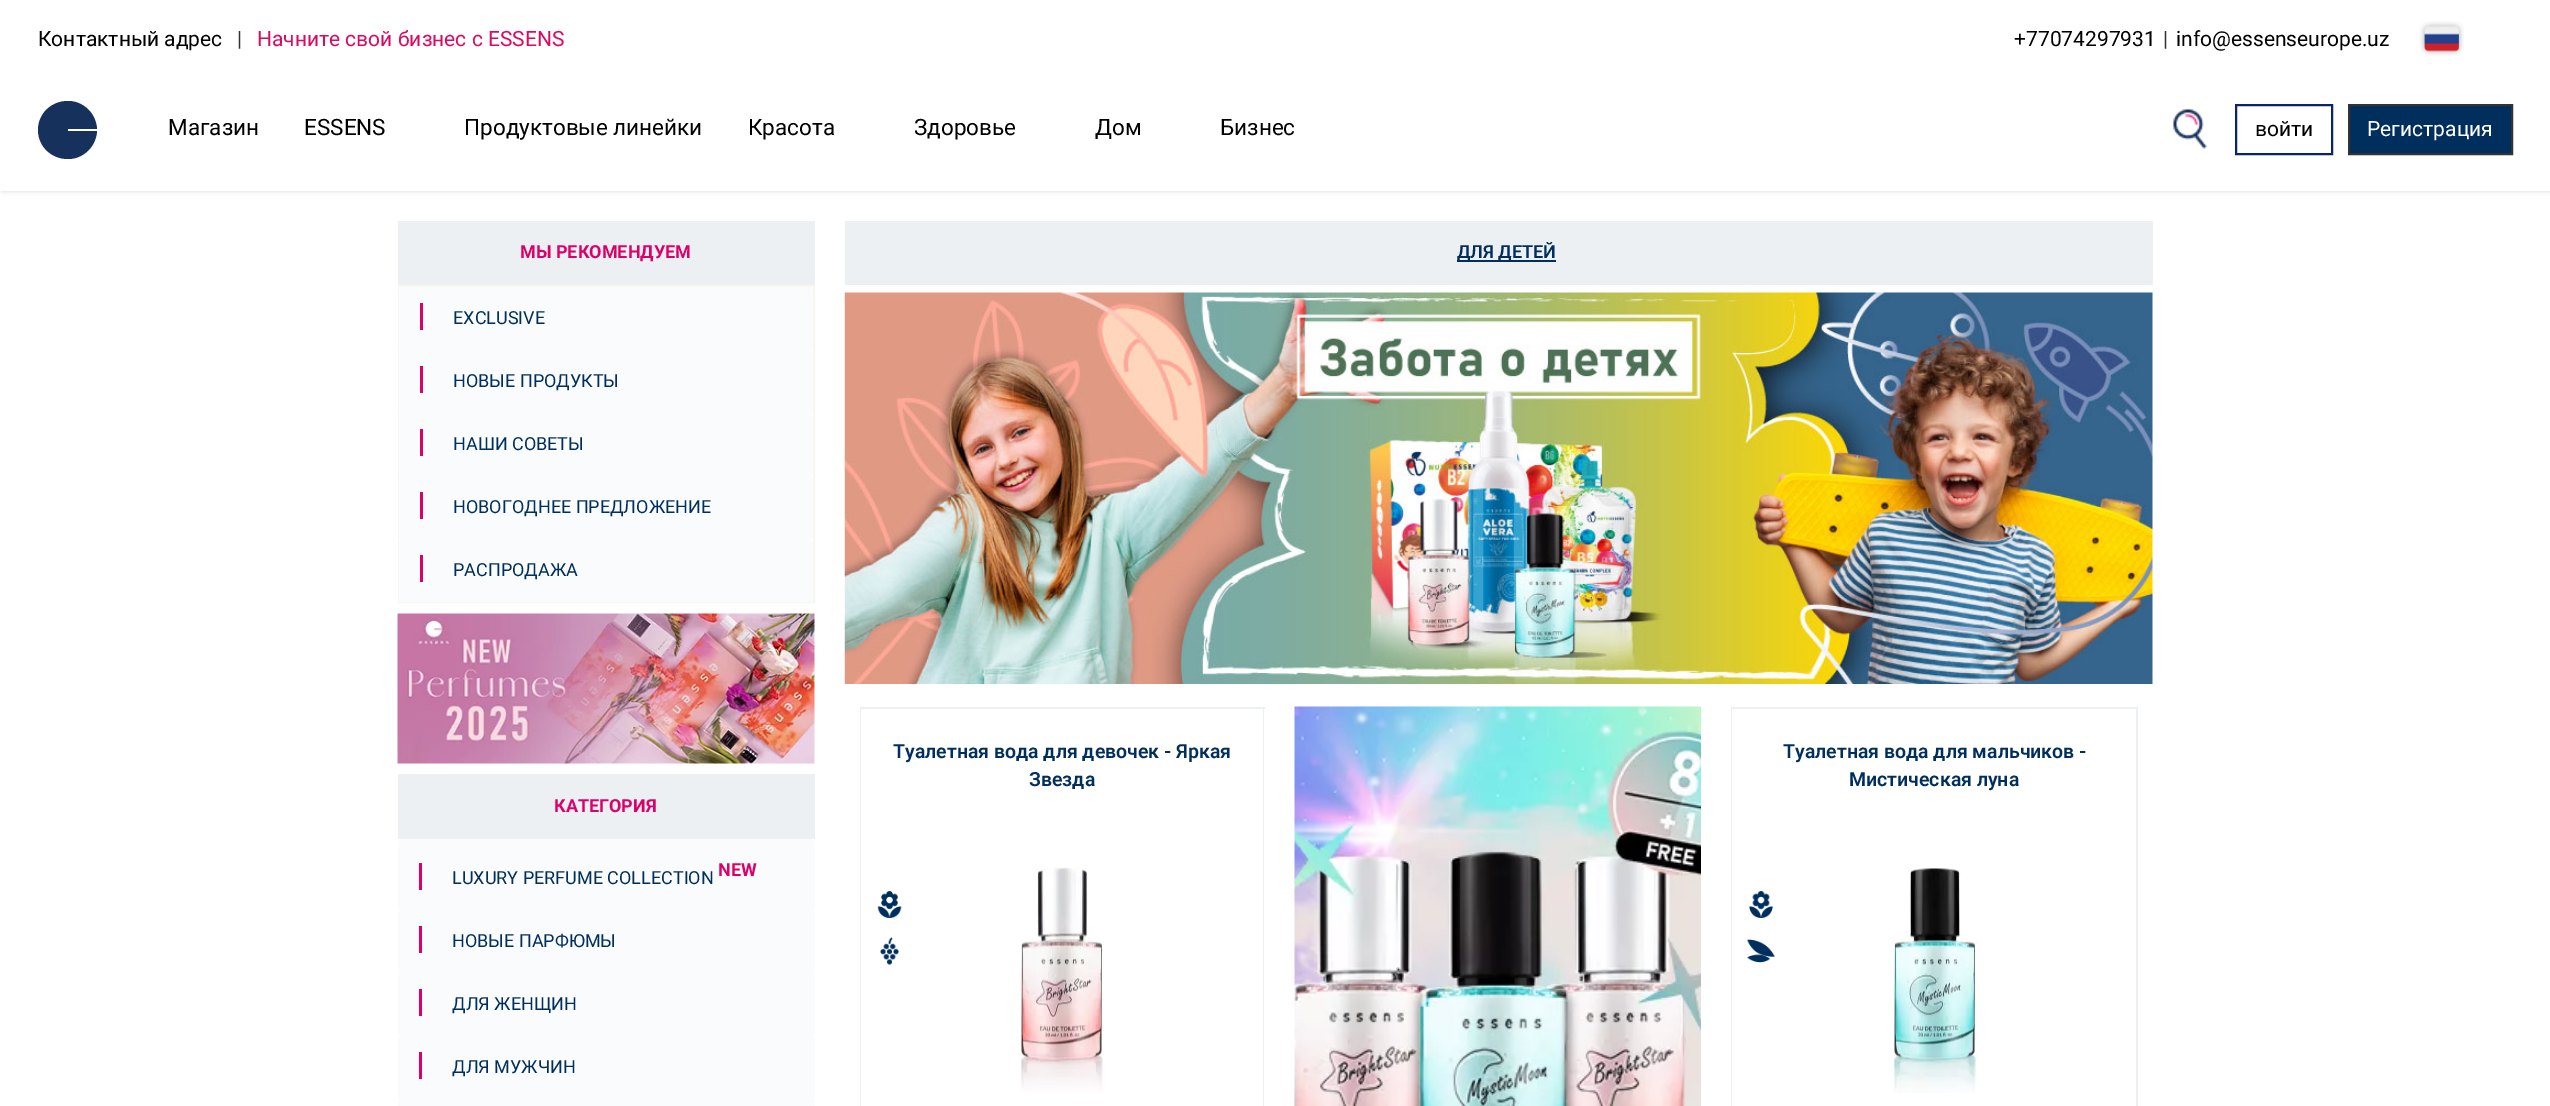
%!PS
<< /PageSize [2550 1106] /PageUsesTransparency true >> setpagedevice
/rgb { dup -16 bitshift 255 div exch dup -8 bitshift 255 and 255 div exch 255 and 255 div setrgbcolor } def
/font { [ exch dup neg 0 0 3 -1 roll 0 0 ] selectfont } def
/text { moveto show } def
/alpha { dup .setfillconstantalpha .setstrokeconstantalpha } def
/roundrect { 5 dict begin { /r /h /w /y /x } { exch def } forall
  x r add y moveto x w add y 2 copy h add r arct x w add y h add x 1 index r arct
  x y h add x y r arct x y 2 copy exch w add exch r arct closepath end } def
/shadow { 12 dict begin { /a /b /q /h /w /y /x } { exch def } forall gsave /was 0 def
  9 -2 -9 { dup b mul 4 div /e exch def 1 sub .425 mul 2.718 exch exp 1 add a .99 .min exch div /now exch def
    1 1 now sub 1 was sub div sub alpha /was now def
    w h .min e 2 mul add 0 gt { x e sub y e sub w e 2 mul add h e 2 mul add
      q e add b .6 mul add w h .min 2 div e add .min 0 .max roundrect fill } if } for grestore end } def
/picture { 5 dict begin { /h /w /y /x /name } { exch def } forall
  gsave x y translate w h scale
  w h 8 [w 0 0 h 0 0] name (r) file false 3 colorimage grestore end } def
0 .pushpdf14devicefilter
0 1106 translate 1 -1 scale
4 setmiterlimit
/s1 { /Roboto-Regular 21 font 16#000000 rgb } def
/s2 { /Roboto-Regular 21 font 16#333333 rgb } def
/s3 { /Roboto-Regular 21 font 16#DB0962 rgb } def
/s4 { /Roboto-Regular 22.5 font 16#000000 rgb } def
/s5 { /Roboto-Regular 21 font 16#FFFFFF rgb } def
/s6 { /Roboto-Bold 18 font 16#DC0069 rgb } def
/s7 { /Roboto-Regular 18 font 16#002E5D rgb } def
/s8 { /Roboto-SemiBold 18 font 16#002E5D rgb } def
/s9 { /Roboto-SemiBold 19.5 font 16#002E5D rgb } def
16#FFFFFF rgb
0 0 2550 1106 rectfill
16#E1E1E1 rgb
2 2 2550 190 0 2 1 shadow
16#FFFFFF rgb
0 0 2550 191 rectfill
s1
(Контактный адрес) 38 46 text
s2
(|) 237 46 text
s3
(Начните свой бизнес с ESSENS) 257 46 text
s1
(+77074297931) 2014 46 text
s2
(|) 2163 46 text
s1
(info@essenseurope.uz) 2176 46 text
(pic1.raw) 2419 21 45 35 picture
16#16315B rgb
68 129 moveto 97 129 lineto 96 113 83 101 68 101 curveto 51 101 38 114 38 130 curveto 38 146 51 159 68 159 curveto 83 159 96 147 97 131 curveto 68 131 lineto closepath fill
s4
(Магазин) 168 135 text
(ESSENS) 304 135 text
(Продуктовые линейки) 464 135 text
(Красота) 748 135 text
(Здоровье) 914 135 text
(Дом) 1095 135 text
(Бизнес) 1220 135 text
(pic2.raw) 2173 109 34 40 picture
16#0A246A rgb
2 setlinewidth
2236 105 96 49 rectstroke
s1
(войти) 2255 136 text
16#002E5D rgb
2349 105 moveto 2512 105 lineto 2512 154 lineto 2349 154 lineto closepath gsave fill grestore
16#333333 rgb
stroke
s5
(Регистрация) 2367 136 text
16#ECF0F3 rgb
398 221 417 64 rectfill
s6
(МЫ РЕКОМЕНДУЕМ) 520 258 text
16#F7F7F0 rgb
399 286 415 316 rectstroke
16#FFFFFF rgb
399 287 1 257 rectfill
16#F9FBFC rgb
404 287 moveto 808 287 lineto 811 287 813 289 813 292 curveto 813 350 lineto 399 350 lineto 399 292 lineto 399 289 401 287 404 287 curveto closepath fill
16#DC0069 rgb
420 303 3 27 rectfill
s7
(EXCLUSIVE) 453 324 text
16#F9FBFC rgb
404 350 moveto 808 350 lineto 811 350 813 352 813 355 curveto 813 413 lineto 399 413 lineto 399 355 lineto 399 352 401 350 404 350 curveto closepath fill
16#DC0069 rgb
420 366 3 27 rectfill
s7
(НОВЫЕ ПРОДУКТЫ) 453 387 text
16#F9FBFC rgb
404 413 moveto 808 413 lineto 811 413 813 415 813 418 curveto 813 476 lineto 399 476 lineto 399 418 lineto 399 415 401 413 404 413 curveto closepath fill
16#DC0069 rgb
420 429 3 27 rectfill
s7
(НАШИ СОВЕТЫ) 453 450 text
16#F9FBFC rgb
404 476 moveto 808 476 lineto 811 476 813 478 813 481 curveto 813 539 lineto 399 539 lineto 399 481 lineto 399 478 401 476 404 476 curveto closepath fill
16#DC0069 rgb
420 492 3 27 rectfill
s7
(НОВОГОДНЕЕ ПРЕДЛОЖЕНИЕ) 453 513 text
16#F9FBFC rgb
404 539 moveto 808 539 lineto 811 539 813 541 813 544 curveto 813 602 lineto 399 602 lineto 399 544 lineto 399 541 401 539 404 539 curveto closepath fill
16#DC0069 rgb
420 555 3 27 rectfill
s7
(РАСПРОДАЖА) 453 576 text
(pic3.raw) 397 613 418 151 picture
16#ECF0F3 rgb
398 774 417 65 rectfill
s6
(КАТЕГОРИЯ) 554 812 text
16#F9FBFC rgb
403 839 moveto 810 839 lineto 813 839 815 841 815 844 curveto 815 909 lineto 398 909 lineto 398 844 lineto 398 841 400 839 403 839 curveto closepath fill
16#DC0069 rgb
419 863 3 27 rectfill
(NEW) 718 876 text
s7
(LUXURY PERFUME COLLECTION) 452 884 text
16#F9FBFC rgb
403 909 moveto 810 909 lineto 813 909 815 911 815 914 curveto 815 972 lineto 398 972 lineto 398 914 lineto 398 911 400 909 403 909 curveto closepath fill
16#DC0069 rgb
419 926 3 27 rectfill
s7
(НОВЫЕ ПАРФЮМЫ) 452 947 text
16#F9FBFC rgb
403 972 moveto 810 972 lineto 813 972 815 974 815 977 curveto 815 1035 lineto 398 1035 lineto 398 977 lineto 398 974 400 972 403 972 curveto closepath fill
16#DC0069 rgb
419 989 3 27 rectfill
s7
(ДЛЯ ЖЕНЩИН) 452 1010 text
16#F9FBFC rgb
403 1035 moveto 810 1035 lineto 813 1035 815 1037 815 1040 curveto 815 1098 lineto 398 1098 lineto 398 1040 lineto 398 1037 400 1035 403 1035 curveto closepath fill
16#DC0069 rgb
419 1052 3 27 rectfill
s7
(ДЛЯ МУЖЧИН) 452 1073 text
16#F9FBFC rgb
403 1098 moveto 810 1098 lineto 813 1098 815 1100 815 1103 curveto 815 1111 lineto 398 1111 lineto 398 1103 lineto 398 1100 400 1098 403 1098 curveto closepath fill
16#ECF0F3 rgb
845 221 1308 64 rectfill
16#002E5D rgb
1457 260 99 2 rectfill
s8
(ДЛЯ ДЕТЕЙ) 1457 258 text
(pic4.raw) 844 292 1309 392 picture
16#ECF0F3 rgb
860 707 405 2 rectfill
1264 706 moveto 1264 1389 lineto 1263 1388 lineto 1263 708 lineto closepath fill
860 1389 moveto 860 706 lineto 861 708 lineto 861 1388 lineto closepath fill
s9
(Туалетная вода для девочек - Яркая) 893 758 text
(Звезда) 1029 786 text
(pic5.raw) 877 891 25 27 picture
(pic6.raw) 880 937 19 28 picture
(pic7.raw) 1020 867 84 225 picture
(pic8.raw) 1294 706 407 400 picture
16#ECF0F3 rgb
1731 707 407 2 rectfill
2138 706 moveto 2138 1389 lineto 2136 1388 lineto 2136 708 lineto closepath fill
1731 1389 moveto 1731 706 lineto 1732 708 lineto 1732 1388 lineto closepath fill
s9
(Туалетная вода для мальчиков -) 1783 758 text
(Мистическая луна) 1849 786 text
(pic9.raw) 1749 891 24 27 picture
(pic10.raw) 1747 939 28 24 picture
(pic11.raw) 1890 868 87 225 picture
.poppdf14devicefilter showpage
